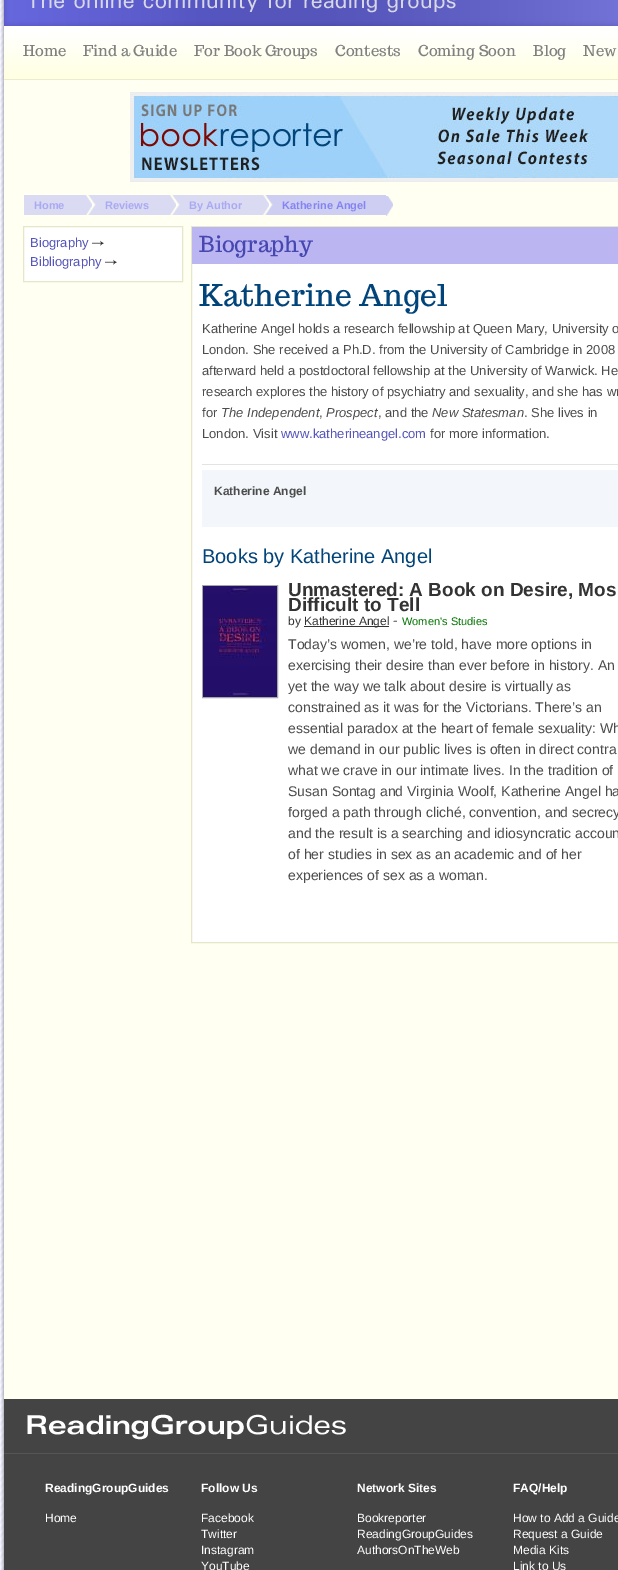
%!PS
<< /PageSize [618 1570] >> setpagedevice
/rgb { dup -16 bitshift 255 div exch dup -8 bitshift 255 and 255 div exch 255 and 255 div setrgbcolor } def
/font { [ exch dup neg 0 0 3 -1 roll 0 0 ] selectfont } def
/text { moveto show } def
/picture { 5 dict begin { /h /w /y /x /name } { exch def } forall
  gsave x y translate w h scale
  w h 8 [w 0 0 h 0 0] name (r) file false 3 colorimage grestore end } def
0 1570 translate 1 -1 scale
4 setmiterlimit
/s1 { /Trocchi-Regular 15 font 16#808080 rgb } def
/s2 { /LiberationSans-Bold 11 font 16#AAAAF2 rgb } def
/s3 { /LiberationSans-Bold 11 font 16#8585F2 rgb } def
/s4 { /LiberationSans-Regular 13 font 16#5555BB rgb } def
/s5 { /Trocchi-Regular 22 font 16#4747B2 rgb } def
/s6 { /Trocchi-Regular 30 font 16#00447A rgb } def
/s7 { /LiberationSans-Regular 13 font 16#4C4C4C rgb } def
/s8 { /LiberationSans-Italic 13 font 16#4C4C4C rgb } def
/s9 { /LiberationSans-Bold 12 font 16#4C4C4C rgb } def
/s10 { /LiberationSans-Regular 20 font 16#00447A rgb } def
/s11 { /LiberationSans-Bold 19 font 16#333333 rgb } def
/s12 { /LiberationSans-Regular 12 font 16#333333 rgb } def
/s13 { /LiberationSans-Regular 14 font 16#4C4C4C rgb } def
/s14 { /LiberationSans-Regular 11 font 16#027500 rgb } def
/s15 { /LiberationSans-Bold 12 font 16#FFFFFF rgb } def
/s16 { /LiberationSans-Regular 12 font 16#FFFFFF rgb } def
16#FFFFFF rgb
0 0 618 1570 rectfill
(pic1.raw) 0 0 4 1570 picture
(pic2.raw) 1 0 617 1570 picture
(pic3.raw) 4 0 614 26 picture
(pic4.raw) 32 0 424 13 picture
(pic5.raw) 4 26 614 54 picture
s1
(Home) 23 56 text
(Find a Guide) 83 56 text
(For Book Groups) 194 56 text
(Contests) 335 56 text
(Coming Soon) 418 56 text
(Blog) 533 56 text
(New) 583 56 text
(pic6.raw) 130 92 488 90 picture
(pic7.raw) 386 196 7 20 picture
16#DADAF2 rgb
24 195 61 20 rectfill
s2
(Home) 34 209 text
(pic8.raw) 85 195 84 20 picture
(Reviews) 105 209 text
(pic9.raw) 169 195 93 20 picture
(By Author) 189 209 text
(pic10.raw) 262 195 124 20 picture
s3
(Katherine Angel) 282 209 text
16#FFFFFF rgb
23.5 226.5 moveto 182.5 226.5 lineto 182.5 281.5 lineto 23.5 281.5 lineto closepath gsave fill grestore
16#E6E6C8 rgb
stroke
s4
(Biography) 30 247 text
(pic11.raw) 92 240 12 6 picture
(Bibliography) 30 266 text
(pic11.raw) 105 259 12 6 picture
16#FFFFFF rgb
192 264 426 678 rectfill
16#E6E6C8 rgb
191.5 226.5 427 716 rectstroke
16#BBB6F2 rgb
192 227 426 37 rectfill
s5
(Biography) 199 252 text
s6
(Katherine Angel) 199 306 text
16#E3E3E3 rgb
202 464 416 1 rectfill
s7
(Katherine Angel holds a research fellowship at Queen Mary, University o) 202 333 text
(London. She received a Ph.D. from the University of Cambridge in 2008) 202 354 text
(afterward held a postdoctoral fellowship at the University of Warwick. He) 202 375 text
(research explores the history of psychiatry and sexuality, and she has wr) 202 396 text
(for) 202 417 text
s8
(The Independent) 221 417 text
s7
(,) 319 417 text
s8
(Prospect) 326 417 text
s7
(, and the) 378 417 text
s8
(New Statesman) 432 417 text
s7
(. She lives in) 524 417 text
(London. Visit) 202 438 text
s4
(www.katherineangel.com) 281 438 text
s7
(for more information.) 430 438 text
16#F3F7FB rgb
202 470 416 57 rectfill
s9
(Katherine Angel) 214 495 text
s10
(Books by Katherine Angel) 202 563 text
16#A6A6A6 rgb
202.5 585.5 75 112 rectstroke
(pic12.raw) 203 586 74 111 picture
s11
(Unmastered: A Book on Desire, Mos) 288 596 text
(Difficult to Tell) 288 611 text
s12
(by) 288 625 text
304 626 85 1 rectfill
(Katherine Angel) 304 625 text
s13
(-) 393 625 text
s14
(Women's Studies) 402 625 text
s13
(Today’s women, we’re told, have more options in) 288 649 text
(exercising their desire than ever before in history. An) 288 670 text
(yet the way we talk about desire is virtually as) 288 691 text
(constrained as it was for the Victorians. There’s an) 288 712 text
(essential paradox at the heart of female sexuality: Wh) 288 733 text
(we demand in our public lives is often in direct contra) 288 754 text
(what we crave in our intimate lives. In the tradition of) 288 775 text
(Susan Sontag and Virginia Woolf, Katherine Angel ha) 288 796 text
(forged a path through cliché, convention, and secrecy) 288 817 text
(and the result is a searching and idiosyncratic accoun) 288 838 text
(of her studies in sex as an academic and of her) 288 859 text
(experiences of sex as a woman.) 288 880 text
16#444444 rgb
4 1399 614 171 rectfill
(pic13.raw) 27 1414 319 26 picture
16#555555 rgb
4 1453 614 1 rectfill
s15
(ReadingGroupGuides) 45 1492 text
s16
(Home) 45 1522 text
s15
(Follow Us) 201 1492 text
s16
(Facebook) 201 1522 text
(Twitter) 201 1538 text
(Instagram) 201 1554 text
(YouTube) 201 1570 text
s15
(Network Sites) 357 1492 text
s16
(Bookreporter) 357 1522 text
(ReadingGroupGuides) 357 1538 text
(AuthorsOnTheWeb) 357 1554 text
s15
(FAQ/Help) 513 1492 text
s16
(How to Add a Guide) 513 1522 text
(Request a Guide) 513 1538 text
(Media Kits) 513 1554 text
(Link to Us) 513 1570 text
showpage
